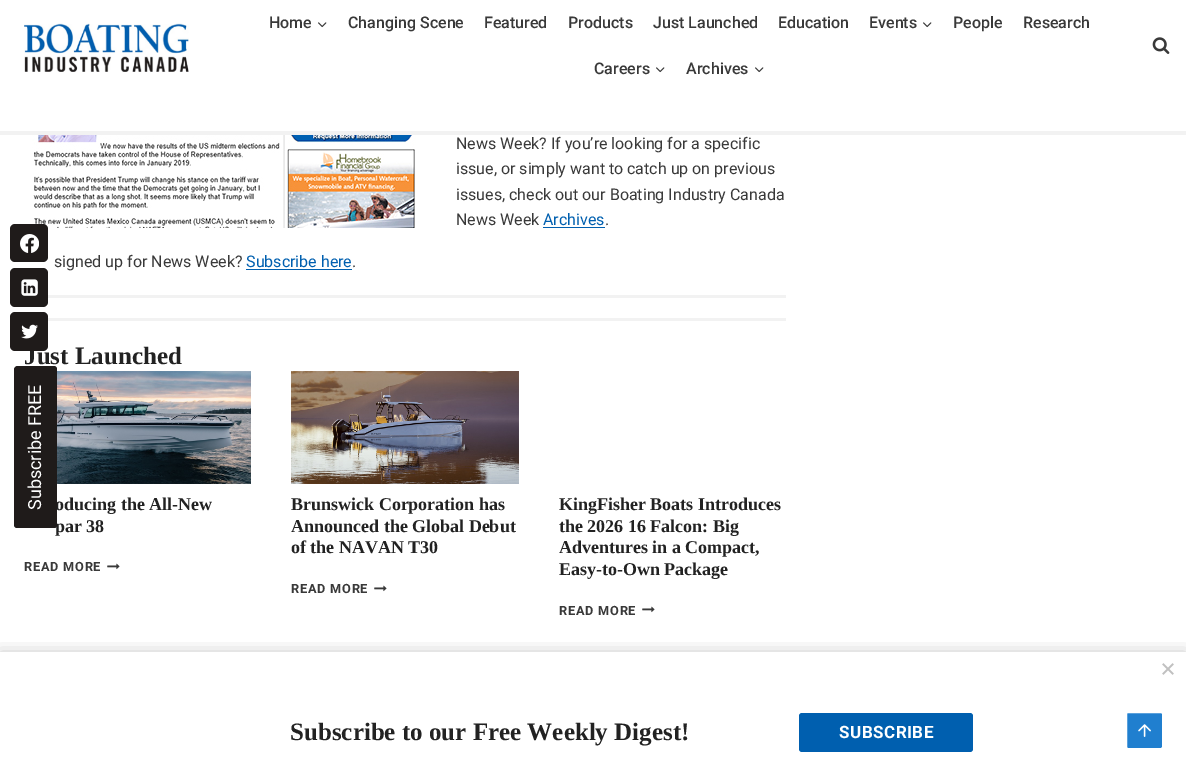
%!PS
<< /PageSize [1186 772] /PageUsesTransparency true >> setpagedevice
/rgb { dup -16 bitshift 255 div exch dup -8 bitshift 255 and 255 div exch 255 and 255 div setrgbcolor } def
/font { [ exch dup neg 0 0 3 -1 roll 0 0 ] selectfont } def
/text { moveto show } def
/alpha { dup .setfillconstantalpha .setstrokeconstantalpha } def
/roundrect { 5 dict begin { /r /h /w /y /x } { exch def } forall
  x r add y moveto x w add y 2 copy h add r arct x w add y h add x 1 index r arct
  x y h add x y r arct x y 2 copy exch w add exch r arct closepath end } def
/shadow { 12 dict begin { /a /b /q /h /w /y /x } { exch def } forall gsave /was 0 def
  9 -2 -9 { dup b mul 4 div /e exch def 1 sub .425 mul 2.718 exch exp 1 add a .99 .min exch div /now exch def
    1 1 now sub 1 was sub div sub alpha /was now def
    w h .min e 2 mul add 0 gt { x e sub y e sub w e 2 mul add h e 2 mul add
      q e add b .6 mul add w h .min 2 div e add .min 0 .max roundrect fill } if } for grestore end } def
/picture { 5 dict begin { /h /w /y /x /name } { exch def } forall
  gsave x y translate w h scale
  w h 8 [w 0 0 h 0 0] name (r) file false 3 colorimage grestore end } def
0 .pushpdf14devicefilter
0 772 translate 1 -1 scale
4 setmiterlimit
/s1 { /Roboto-Medium 16 font 16#393939 rgb } def
/s2 { /LiberationSerif-Bold 25 font 16#222222 rgb } def
/s3 { /LiberationSerif-Bold 18 font 16#222222 rgb } def
/s4 { /Roboto-Regular 16 font 16#393939 rgb } def
/s5 { /Roboto-Regular 16 font 16#005FAF rgb } def
16#FFFFFF rgb
0 0 1186 772 rectfill
16#F2F2F2 rgb
0 131 1186 4 rectfill
(pic1.raw) 24 23 165 49 picture
s1
(Home) 269 28 text
(pic2.raw) 318 22 9 6 picture
(Changing Scene) 348 28 text
(Featured) 484 28 text
(Products) 568 28 text
(Just Launched) 653 28 text
(Education) 778 28 text
(Events) 869 28 text
(pic2.raw) 923 22 9 6 picture
(People) 953 28 text
(Research) 1023 28 text
(Careers) 594 74 text
(pic2.raw) 656 67 9 6 picture
(Archives) 686 74 text
(pic2.raw) 755 67 9 6 picture
(pic3.raw) 1152 37 18 17 picture
(pic7.raw) 30 135 391 93 picture
16#1F1B1A rgb
10 224 38 38 5 roundrect fill
(pic4.raw) 20 234 19 19 picture
10 268 38 39 5 roundrect fill
(pic5.raw) 21 279 17 17 picture
s2
(Just Launched) 24 364 text
16#1F1B1A rgb
10 312 38 39 5 roundrect fill
(pic6.raw) 21 324 17 15 picture
s3
(oducing the All-New) 55 510 text
(par 38) 55 532 text
16#1F1B1A rgb
14 525 moveto 14 369 lineto 14 368 16 366 17 366 curveto 54 366 lineto 56 366 57 368 57 369 curveto 57 525 lineto 57 527 56 528 54 528 curveto 17 528 lineto 16 528 14 527 14 525 curveto closepath fill
/Roboto-Regular 18 font
16#FFFFFF rgb
gsave 41 510 translate -90 rotate 0 0 moveto (Subscribe FREE) show grestore
s4
(News Week? If you’re looking for a specific) 456 149 text
(issue, or simply want to catch up on previous) 456 174 text
(issues, check out our Boating Industry Canada) 456 200 text
(News Week) 456 225 text
s5
(Archives) 543 225 text
543 227 62 1 rectfill
s4
(.) 605 225 text
(signed up for News Week?) 54 267 text
s5
(Subscribe here) 246 267 text
246 269 106 1 rectfill
s4
(.) 352 267 text
16#F2F2F2 rgb
48 295 738 3 rectfill
48 318 738 3 rectfill
(pic8.raw) 57 371 194 113 picture
/Roboto-Bold 12.75 font
16#393939 rgb
24 571 moveto 0.75 0 (READ MORE) ashow
(pic9.raw) 107 563 13 7 picture
(pic10.raw) 291 371 228 113 picture
s3
(Brunswick Corporation has) 291 510 text
(Announced the Global Debut) 291 532 text
(of the NAVAN T30) 291 553 text
/Roboto-Bold 12.75 font
16#393939 rgb
291 593 moveto 0.75 0 (READ MORE) ashow
(pic9.raw) 374 585 13 7 picture
s3
(KingFisher Boats Introduces) 559 510 text
(the 2026 16 Falcon: Big) 559 532 text
(Adventures in a Compact,) 559 553 text
(Easy-to-Own Package) 559 575 text
/Roboto-Bold 12.75 font
16#393939 rgb
559 615 moveto 0.75 0 (READ MORE) ashow
(pic9.raw) 642 606 13 7 picture
gsave
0 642 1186 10 rectclip
16#000000 rgb
0 652 1186 120 0 8 0.2 shadow
grestore
(pic11.raw) 1162 663 12 12 picture
s2
(Subscribe to our Free Weekly Digest!) 290 740 text
16#005FAF rgb
799 713 174 39 3 roundrect fill
/Roboto-Bold 17 font
16#FFFFFF rgb
839 738 moveto 0.5 0 (SUBSCRIBE) ashow
16#207FCF rgb
1126 712 37 37 2 roundrect gsave fill grestore
16#FFFFFF rgb
2 setlinewidth
stroke
(pic12.raw) 1138 724 13 13 picture
.poppdf14devicefilter showpage
